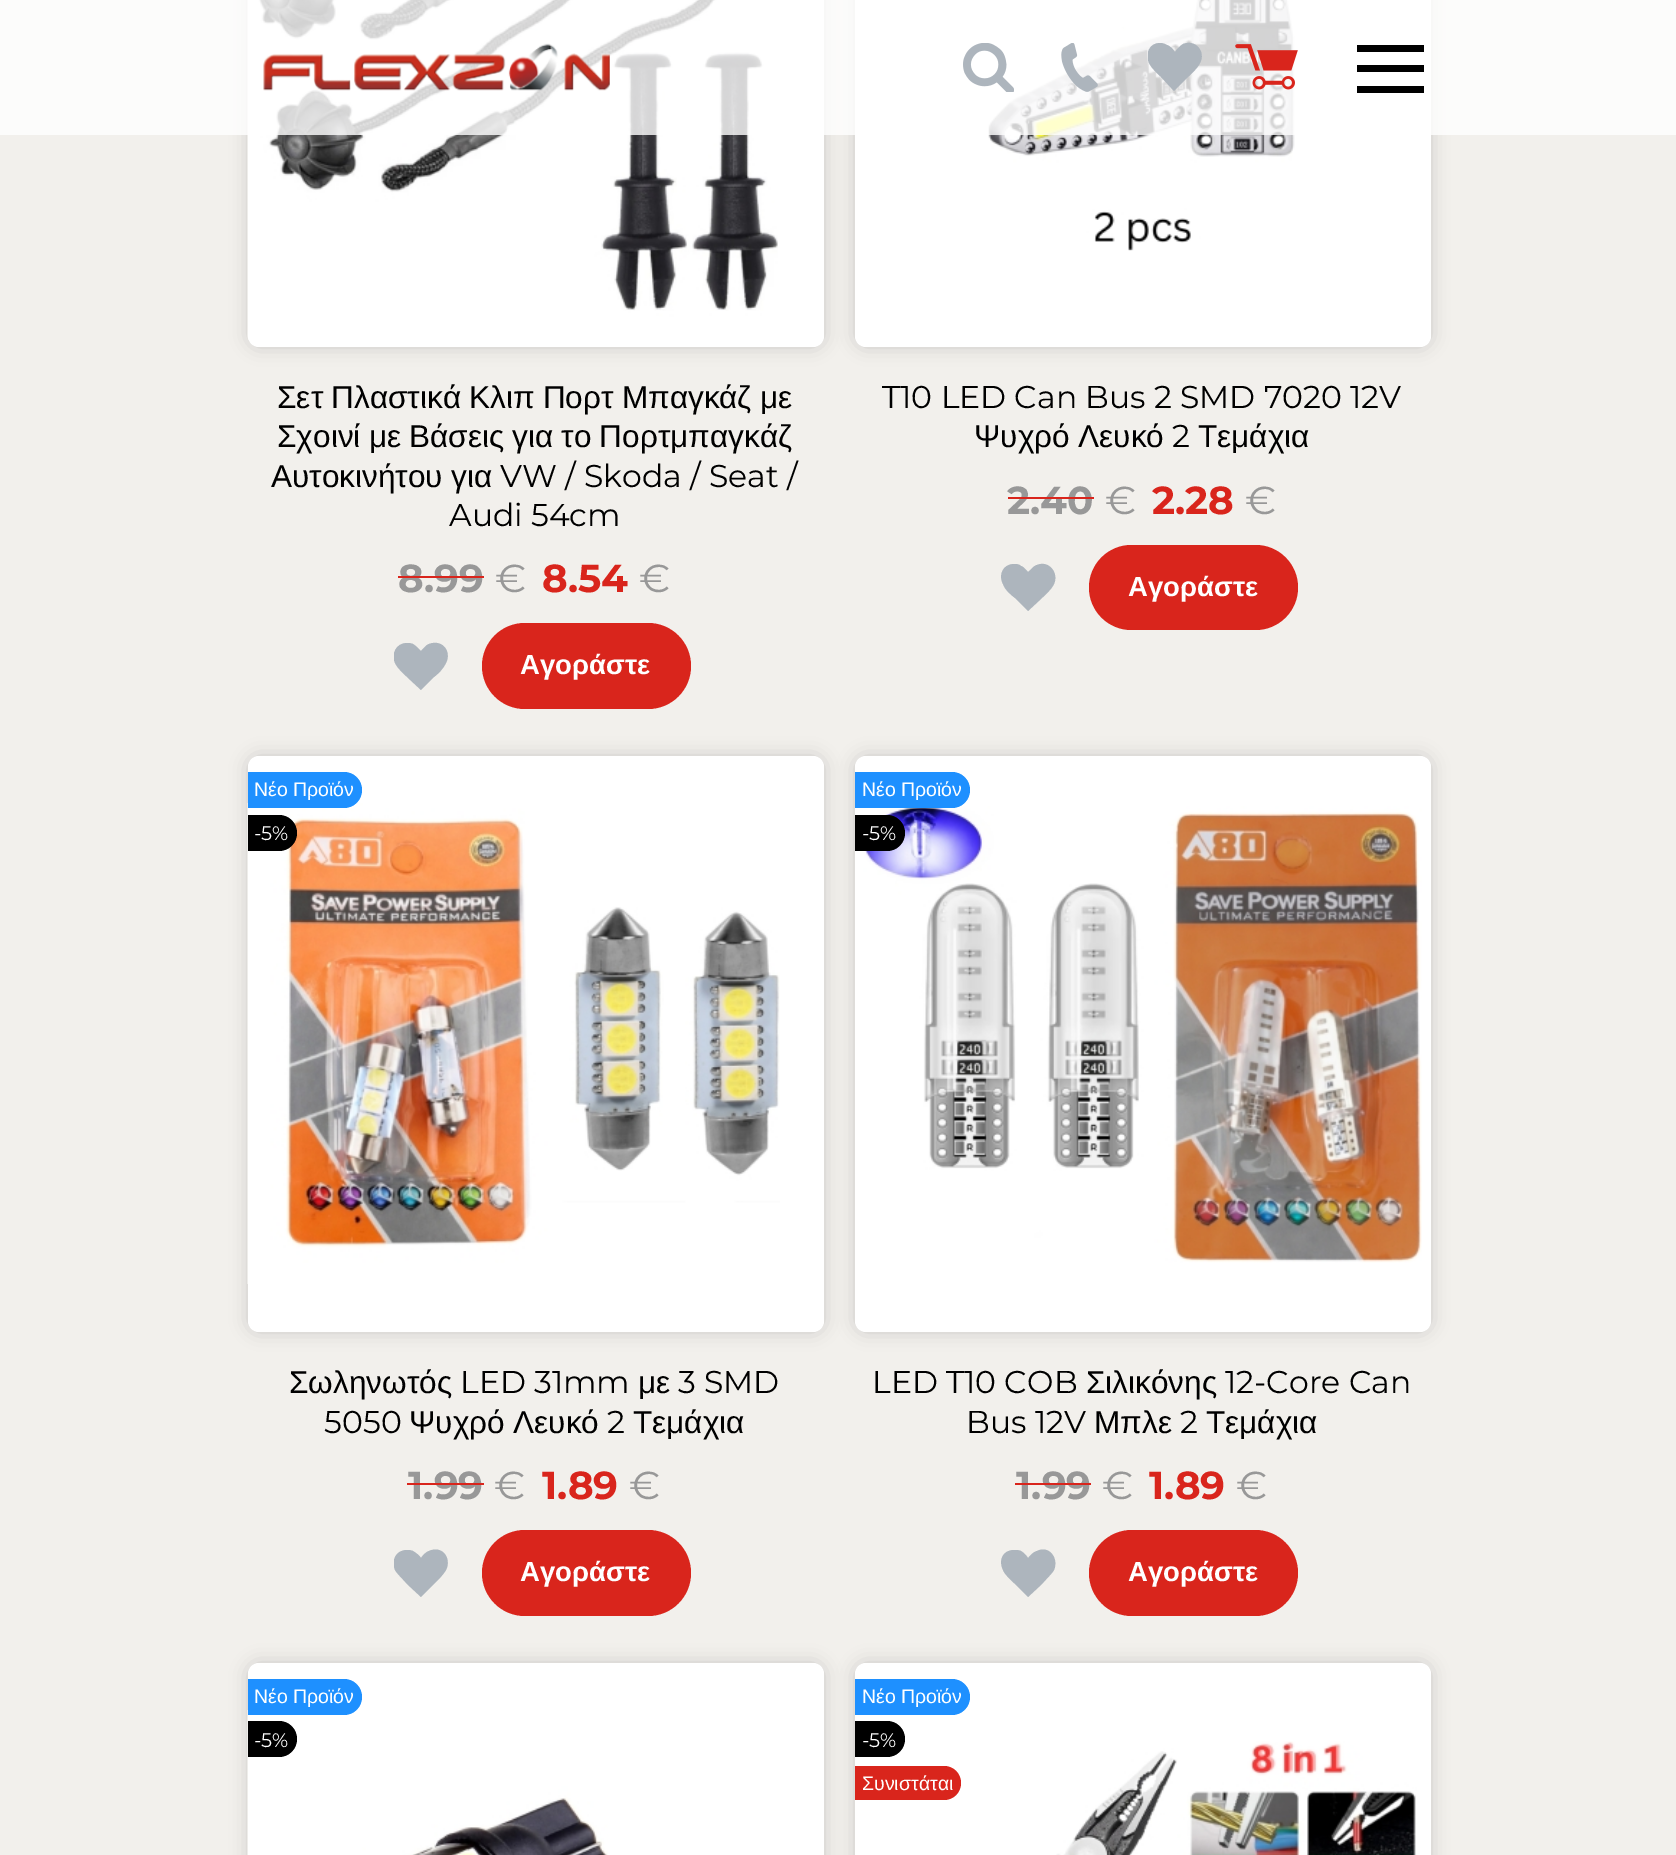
%!PS
<< /PageSize [1676 1855] /PageUsesTransparency true >> setpagedevice
/rgb { dup -16 bitshift 255 div exch dup -8 bitshift 255 and 255 div exch 255 and 255 div setrgbcolor } def
/font { [ exch dup neg 0 0 3 -1 roll 0 0 ] selectfont } def
/text { moveto show } def
/alpha { dup .setfillconstantalpha .setstrokeconstantalpha } def
/roundrect { 5 dict begin { /r /h /w /y /x } { exch def } forall
  x r add y moveto x w add y 2 copy h add r arct x w add y h add x 1 index r arct
  x y h add x y r arct x y 2 copy exch w add exch r arct closepath end } def
/shadow { 12 dict begin { /a /b /q /h /w /y /x } { exch def } forall gsave /was 0 def
  9 -2 -9 { dup b mul 4 div /e exch def 1 sub .425 mul 2.718 exch exp 1 add a .99 .min exch div /now exch def
    1 1 now sub 1 was sub div sub alpha /was now def
    w h .min e 2 mul add 0 gt { x e sub y e sub w e 2 mul add h e 2 mul add
      q e add b .6 mul add w h .min 2 div e add .min 0 .max roundrect fill } if } for grestore end } def
/picture { 5 dict begin { /h /w /y /x /name } { exch def } forall
  gsave x y translate w h scale
  w h 8 [w 0 0 h 0 0] name (r) file false 3 colorimage grestore end } def
0 .pushpdf14devicefilter
0 1855 translate 1 -1 scale
4 setmiterlimit
/s1 { /LiberationSans-Regular 31.5 font 16#000000 rgb } def
/s2 { /Montserrat-Regular 31.5 font 16#000000 rgb } def
/s3 { /Montserrat-Bold 39 font 16#989898 rgb } def
/s4 { /Montserrat-Regular 39 font 16#989898 rgb } def
/s5 { /Montserrat-Bold 39 font 16#D9251C rgb } def
/s6 { /LiberationSans-Bold 27.5 font 16#FFFFFF rgb } def
/s7 { /LiberationSans-Regular 19.5 font 16#FFFFFF rgb } def
/s8 { /Montserrat-Regular 19.5 font 16#FFFFFF rgb } def
16#F2F0EC rgb
0 0 1676 1855 rectfill
16#000000 rgb
248 -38 576 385 11 9 0.16 shadow
16#FFFFFF rgb
248 -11 576 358 11 roundrect fill
(pic5.raw) 247 0 531 340 picture
16#000000 rgb
855 -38 576 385 11 9 0.16 shadow
16#FFFFFF rgb
855 -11 576 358 11 roundrect fill
(pic6.raw) 988 0 307 251 picture
0.8 alpha
0 0 1676 135 rectfill
1 alpha
(pic1.raw) 263 43 347 48 picture
(pic2.raw) 963 43 51 49 picture
(pic3.raw) 1061 43 37 49 picture
gsave
1148 38 55 58 rectclip
16#ADB5BD rgb
1174 91 moveto 1161 77 lineto 1157 73 1152 69 1149 63 curveto 1145 54 1149 43 1160 43 curveto 1163 43 1165 44 1167 45 curveto 1170 46 1173 49 1175 52 curveto 1177 49 1180 46 1183 44 curveto 1196 39 1206 52 1200 63 curveto 1197 69 1192 73 1188 77 curveto closepath fill
grestore
(pic4.raw) 1235 44 63 46 picture
16#000000 rgb
1357 65 67 7 rectfill
1357 45 67 7 rectfill
1357 86 67 7 rectfill
/LiberationSans-Regular 31.5 font
277 408 moveto -0.5 0 32 (Σετ Πλαστικά Κλιπ Πορτ Μπαγκάζ με) widthshow
277 447 moveto -0.5 0 32 (Σχοινί με Βάσεις για το Πορτμπαγκάζ) widthshow
(Αυτοκινήτου) 271 487 text
(για) 451 487 text
s2
(VW / Skoda / Seat /) 500 487 text
(Audi 54cm) 449 526 text
s3
(8.99) 398 592 text
16#D9251C rgb
398 576 86 2 rectfill
s4
(€) 495 592 text
s5
(8.54) 542 592 text
s4
(€) 639 592 text
gsave
394 639 55 54 rectclip
16#ADB5BD rgb
421 690 moveto 407 677 lineto 403 673 398 669 395 663 curveto 391 654 396 643 407 643 curveto 409 643 411 643 413 644 curveto 416 646 419 649 421 651 curveto 423 649 426 645 429 644 curveto 442 639 452 651 446 663 curveto 443 669 439 673 434 677 curveto closepath fill
grestore
16#D9251C rgb
482 623 209 86 43 roundrect fill
s6
(Αγοράστε) 520 674 text
s2
(T10 LED Can Bus 2 SMD 7020 12V) 882 408 text
s1
(Ψυχρό Λευκό) 974 447 text
s2
(2) 1172 447 text
s1
(Τεμάχια) 1198 447 text
s3
(2.40) 1007 514 text
16#D9251C rgb
1008 497 86 2 rectfill
s4
(€) 1105 514 text
s5
(2.28) 1152 514 text
s4
(€) 1245 514 text
16#ADB5BD rgb
1028 611 moveto 1015 598 lineto 1010 594 1005 590 1003 584 curveto 998 575 1003 564 1014 564 curveto 1016 564 1019 564 1021 566 curveto 1024 567 1026 570 1028 572 curveto 1031 570 1033 566 1037 565 curveto 1049 560 1059 573 1054 584 curveto 1051 590 1046 594 1042 598 curveto closepath fill
16#D9251C rgb
1089 545 209 85 42.5 roundrect fill
s6
(Αγοράστε) 1128 596 text
16#000000 rgb
248 756 576 576 11 9 0.16 shadow
16#FFFFFF rgb
248 756 576 576 11 roundrect fill
(pic7.raw) 247 803 533 481 picture
16#1E90FF rgb
248 772 moveto 344 772 lineto 354 772 362 780 362 790 curveto 362 800 354 808 344 808 curveto 248 808 lineto closepath fill
s7
(Νέο Προϊόν) 254 796 text
16#000000 rgb
248 815 moveto 279 815 lineto 289 815 297 823 297 833 curveto 297 843 289 851 279 851 curveto 248 851 lineto closepath fill
s8
(-5%) 254 840 text
s1
(Σωληνωτός) 289 1393 text
s2
(LED 31mm) 460 1393 text
s1
(με) 638 1393 text
s2
(3 SMD) 678 1393 text
(5050) 324 1433 text
s1
(Ψυχρό Λευκό) 409 1433 text
s2
(2) 607 1433 text
s1
(Τεμάχια) 633 1433 text
s3
(1.99) 408 1499 text
16#D9251C rgb
407 1483 77 2 rectfill
s4
(€) 494 1499 text
s5
(1.89) 542 1499 text
s4
(€) 629 1499 text
gsave
394 1546 55 54 rectclip
16#ADB5BD rgb
421 1597 moveto 407 1584 lineto 403 1579 398 1575 395 1570 curveto 391 1560 396 1550 407 1550 curveto 409 1550 411 1550 413 1551 curveto 416 1553 419 1555 421 1558 curveto 423 1555 426 1552 429 1551 curveto 442 1545 452 1558 446 1570 curveto 443 1575 439 1579 434 1584 curveto closepath fill
grestore
16#D9251C rgb
482 1530 209 86 43 roundrect fill
s6
(Αγοράστε) 520 1581 text
16#000000 rgb
855 756 576 576 11 9 0.16 shadow
16#FFFFFF rgb
855 756 576 576 11 roundrect fill
(pic8.raw) 863 806 559 457 picture
16#1E90FF rgb
855 772 moveto 952 772 lineto 962 772 970 780 970 790 curveto 970 800 962 808 952 808 curveto 855 808 lineto closepath fill
s7
(Νέο Προϊόν) 862 796 text
16#000000 rgb
855 815 moveto 887 815 lineto 897 815 905 823 905 833 curveto 905 843 897 851 887 851 curveto 855 851 lineto closepath fill
s8
(-5%) 862 840 text
s2
(LED T10 COB) 872 1393 text
s1
(Σιλικόνης) 1086 1393 text
s2
(12-Core Can) 1225 1393 text
(Bus 12V) 966 1433 text
s1
(Μπλε) 1094 1433 text
s2
(2) 1180 1433 text
s1
(Τεμάχια) 1206 1433 text
s3
(1.99) 1016 1499 text
16#D9251C rgb
1015 1483 76 2 rectfill
s4
(€) 1102 1499 text
s5
(1.89) 1149 1499 text
s4
(€) 1236 1499 text
16#ADB5BD rgb
1028 1597 moveto 1015 1584 lineto 1010 1579 1005 1575 1003 1570 curveto 998 1560 1003 1550 1014 1550 curveto 1016 1550 1019 1550 1021 1551 curveto 1024 1553 1026 1555 1028 1558 curveto 1031 1555 1033 1552 1037 1551 curveto 1049 1545 1059 1558 1054 1570 curveto 1051 1575 1046 1579 1042 1584 curveto closepath fill
16#D9251C rgb
1089 1530 209 86 43 roundrect fill
s6
(Αγοράστε) 1128 1581 text
16#000000 rgb
248 1663 576 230 11 9 0.16 shadow
16#FFFFFF rgb
248 1663 576 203 11 roundrect fill
(pic9.raw) 247 1710 361 145 picture
16#1E90FF rgb
248 1679 moveto 344 1679 lineto 354 1679 362 1687 362 1697 curveto 362 1707 354 1715 344 1715 curveto 248 1715 lineto closepath fill
s7
(Νέο Προϊόν) 254 1703 text
16#000000 rgb
248 1721 moveto 279 1721 lineto 289 1721 297 1729 297 1739 curveto 297 1749 289 1757 279 1757 curveto 248 1757 lineto closepath fill
s8
(-5%) 254 1747 text
16#000000 rgb
855 1663 576 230 11 9 0.16 shadow
16#FFFFFF rgb
855 1663 576 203 11 roundrect fill
(pic10.raw) 1056 1741 361 114 picture
16#1E90FF rgb
855 1679 moveto 952 1679 lineto 962 1679 970 1687 970 1697 curveto 970 1707 962 1715 952 1715 curveto 855 1715 lineto closepath fill
s7
(Νέο Προϊόν) 862 1703 text
16#000000 rgb
855 1721 moveto 887 1721 lineto 897 1721 905 1729 905 1739 curveto 905 1749 897 1757 887 1757 curveto 855 1757 lineto closepath fill
s8
(-5%) 862 1747 text
16#D9251C rgb
855 1766 moveto 944 1766 lineto 953.5 1766 961 1773.5 961 1783 curveto 961 1792.5 953.5 1800 944 1800 curveto 855 1800 lineto closepath fill
s7
(Συνιστάται) 862 1790 text
.poppdf14devicefilter showpage
